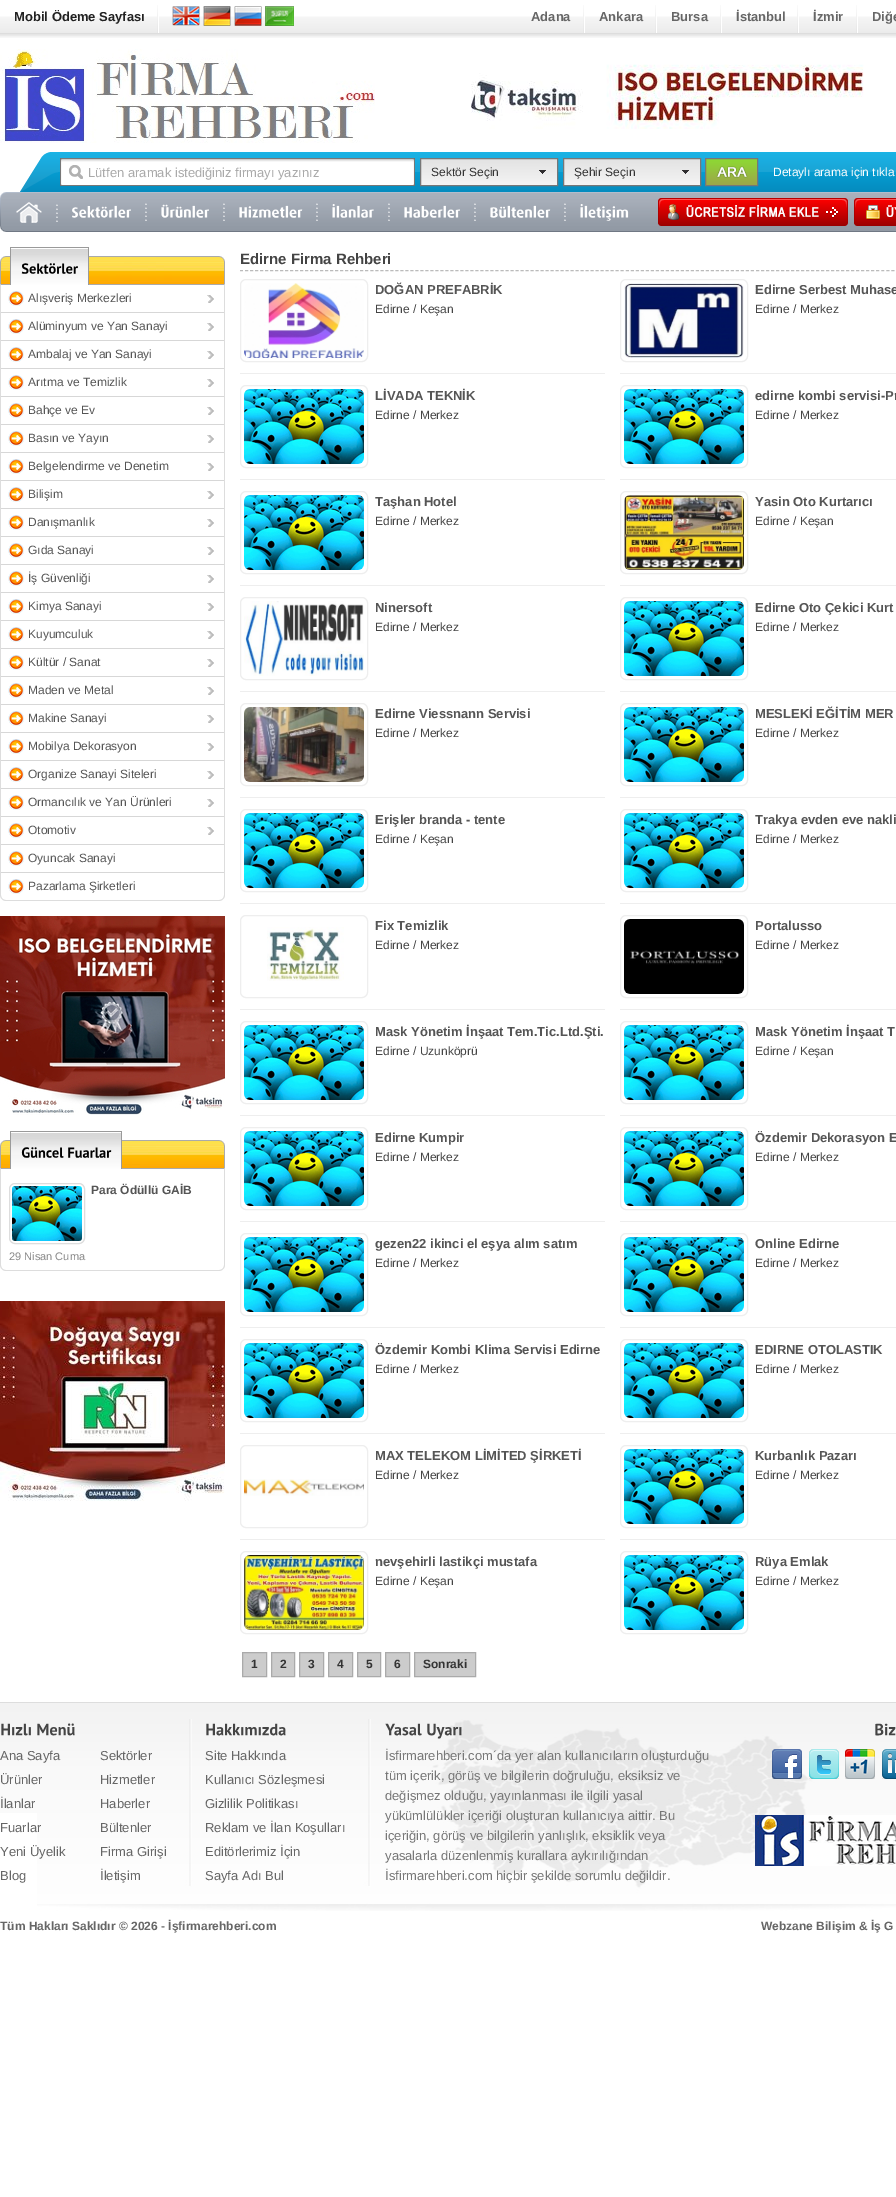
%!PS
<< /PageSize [896 2197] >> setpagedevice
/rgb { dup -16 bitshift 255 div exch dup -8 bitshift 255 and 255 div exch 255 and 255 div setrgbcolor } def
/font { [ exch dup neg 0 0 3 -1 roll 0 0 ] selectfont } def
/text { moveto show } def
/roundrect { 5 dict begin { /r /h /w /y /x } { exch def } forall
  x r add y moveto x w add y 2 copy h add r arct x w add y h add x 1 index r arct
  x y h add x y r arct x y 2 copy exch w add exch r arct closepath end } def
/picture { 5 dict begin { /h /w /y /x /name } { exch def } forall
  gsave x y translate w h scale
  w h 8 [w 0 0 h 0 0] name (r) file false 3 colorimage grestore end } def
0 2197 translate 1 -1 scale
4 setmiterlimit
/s1 { /LiberationSans-Bold 13 font 16#222222 rgb } def
/s2 { /LiberationSans-Bold 13 font 16#666666 rgb } def
/s3 { /LiberationSans-Regular 13 font 16#AAAAAA rgb } def
/s4 { /LiberationSans-Regular 12 font 16#333333 rgb } def
/s5 { /LiberationSans-Regular 12 font 16#FFFFFF rgb } def
/s6 { /LiberationSans-Regular 12 font 16#555555 rgb } def
/s7 { /LiberationSans-Bold 12 font 16#555555 rgb } def
/s8 { /LiberationSans-Regular 11 font 16#888888 rgb } def
/s9 { /LiberationSans-Bold 15 font 16#444444 rgb } def
/s10 { /LiberationSans-Bold 13 font 16#555555 rgb } def
/s11 { /LiberationSans-Regular 12 font 16#444444 rgb } def
/s12 { /LiberationSans-Bold 12 font 16#333333 rgb } def
/s13 { /LiberationSans-Regular 13 font 16#666666 rgb } def
/s14 { /LiberationSans-Regular 13 font 16#777777 rgb } def
/s15 { /LiberationSans-Bold 12 font 16#666666 rgb } def
16#FFFFFF rgb
0 0 896 2197 rectfill
(pic1.raw) 0 16 896 22 picture
(pic2.raw) 157 5 2 28 picture
s1
(Mobil Ödeme Sayfası) 14 21 text
(pic3.raw) 172 6 28 20 picture
(pic4.raw) 203 6 28 20 picture
(pic5.raw) 234 6 28 20 picture
(pic6.raw) 265 6 29 20 picture
(pic2.raw) 583 5 2 28 picture
s2
(Adana) 531 21 text
(pic2.raw) 655 5 2 28 picture
(Ankara) 599 21 text
(pic2.raw) 720 5 2 28 picture
(Bursa) 671 21 text
(pic2.raw) 797 5 2 28 picture
(İstanbul) 736 21 text
(pic2.raw) 856 5 2 28 picture
(İzmir) 813 21 text
(Diğe) 872 21 text
(pic7.raw) 0 49 375 94 picture
(pic8.raw) 471 64 393 65 picture
(pic9.raw) 20 152 876 40 picture
(pic10.raw) 60 158 355 28 picture
s3
(Lütfen aramak istediğiniz firmayı yazınız) 88 177 text
(pic11.raw) 421 159 136 26 picture
16#777777 rgb
420.5 158.5 137 27 rectstroke
s4
(Sektör Seçin) 431 176 text
(pic11.raw) 564 159 136 26 picture
16#777777 rgb
563.5 158.5 137 27 rectstroke
s4
(Şehir Seçin) 574 176 text
(pic12.raw) 706 159 51 26 picture
16#777777 rgb
705.5 158.5 52 27 rectstroke
s5
(Detaylı arama için tıkla) 773 176 text
(pic13.raw) 0 192 896 40 picture
(pic14.raw) 56 204 2 18 picture
(pic15.raw) 16 202 26 21 picture
(pic16.raw) 145 203 2 18 picture
(pic17.raw) 72 205 59 13 picture
(pic16.raw) 223 203 2 18 picture
(pic18.raw) 161 204 48 14 picture
(pic16.raw) 316 203 2 18 picture
(pic19.raw) 239 205 64 13 picture
(pic16.raw) 388 203 2 18 picture
(pic20.raw) 332 204 42 14 picture
(pic16.raw) 474 203 2 18 picture
(pic21.raw) 404 205 56 13 picture
(pic16.raw) 564 203 2 18 picture
(pic22.raw) 490 205 61 13 picture
(pic23.raw) 580 204 49 17 picture
(pic24.raw) 658 198 190 28 picture
(pic25.raw) 854 198 42 28 picture
(pic26.raw) 0 256 225 29 picture
(pic27.raw) 11 247 77 38 picture
16#9A9A9A rgb
88 247 1 38 rectfill
10 247 1 38 rectfill
(pic28.raw) 21 263 57 11 picture
16#DDDDDD rgb
0 285 moveto 225 285 lineto 225 895 lineto 225 898 222 901 219 901 curveto 6 901 lineto 3 901 0 898 0 895 curveto closepath 1 285 moveto 224 285 lineto 224 895 lineto 224 898 222 900 219 900 curveto 6 900 lineto 3 900 1 898 1 895 curveto closepath eofill
(pic29.raw) 8 291 16 15 picture
(pic30.raw) 207 295 7 8 picture
s6
(Alışveriş Merkezleri) 28 302 text
(pic29.raw) 8 319 16 15 picture
16#D7D7D7 rgb
1 312 223 1 rectfill
(pic30.raw) 207 323 7 8 picture
s6
(Alüminyum ve Yan Sanayi) 28 330 text
(pic29.raw) 8 347 16 15 picture
16#D7D7D7 rgb
1 340 223 1 rectfill
(pic30.raw) 207 351 7 8 picture
s6
(Ambalaj ve Yan Sanayi) 28 358 text
(pic29.raw) 8 375 16 15 picture
16#D7D7D7 rgb
1 368 223 1 rectfill
(pic30.raw) 207 379 7 8 picture
s6
(Arıtma ve Temizlik) 28 386 text
(pic29.raw) 8 403 16 15 picture
16#D7D7D7 rgb
1 396 223 1 rectfill
(pic30.raw) 207 407 7 8 picture
s6
(Bahçe ve Ev) 28 414 text
(pic29.raw) 8 431 16 15 picture
16#D7D7D7 rgb
1 424 223 1 rectfill
(pic30.raw) 207 435 7 8 picture
s6
(Basın ve Yayın) 28 442 text
(pic29.raw) 8 459 16 15 picture
16#D7D7D7 rgb
1 452 223 1 rectfill
(pic30.raw) 207 463 7 8 picture
s6
(Belgelendirme ve Denetim) 28 470 text
(pic29.raw) 8 487 16 15 picture
16#D7D7D7 rgb
1 480 223 1 rectfill
(pic30.raw) 207 491 7 8 picture
s6
(Bilişim) 28 498 text
(pic29.raw) 8 515 16 15 picture
16#D7D7D7 rgb
1 508 223 1 rectfill
(pic30.raw) 207 519 7 8 picture
s6
(Danışmanlık) 28 526 text
(pic29.raw) 8 543 16 15 picture
16#D7D7D7 rgb
1 536 223 1 rectfill
(pic30.raw) 207 547 7 8 picture
s6
(Gıda Sanayi) 28 554 text
(pic29.raw) 8 571 16 15 picture
16#D7D7D7 rgb
1 564 223 1 rectfill
(pic30.raw) 207 575 7 8 picture
s6
(İş Güvenliği) 28 582 text
(pic29.raw) 8 599 16 15 picture
16#D7D7D7 rgb
1 592 223 1 rectfill
(pic30.raw) 207 603 7 8 picture
s6
(Kimya Sanayi) 28 610 text
(pic29.raw) 8 627 16 15 picture
16#D7D7D7 rgb
1 620 223 1 rectfill
(pic30.raw) 207 631 7 8 picture
s6
(Kuyumculuk) 28 638 text
(pic29.raw) 8 655 16 15 picture
16#D7D7D7 rgb
1 648 223 1 rectfill
(pic30.raw) 207 659 7 8 picture
s6
(Kültür / Sanat) 28 666 text
(pic29.raw) 8 683 16 15 picture
16#D7D7D7 rgb
1 676 223 1 rectfill
(pic30.raw) 207 687 7 8 picture
s6
(Maden ve Metal) 28 694 text
(pic29.raw) 8 711 16 15 picture
16#D7D7D7 rgb
1 704 223 1 rectfill
(pic30.raw) 207 715 7 8 picture
s6
(Makine Sanayi) 28 722 text
(pic29.raw) 8 739 16 15 picture
16#D7D7D7 rgb
1 732 223 1 rectfill
(pic30.raw) 207 743 7 8 picture
s6
(Mobilya Dekorasyon) 28 750 text
(pic29.raw) 8 767 16 15 picture
16#D7D7D7 rgb
1 760 223 1 rectfill
(pic30.raw) 207 771 7 8 picture
s6
(Organize Sanayi Siteleri) 28 778 text
(pic29.raw) 8 795 16 15 picture
16#D7D7D7 rgb
1 788 223 1 rectfill
(pic30.raw) 207 799 7 8 picture
s6
(Ormancılık ve Yan Ürünleri) 28 806 text
(pic29.raw) 8 823 16 15 picture
16#D7D7D7 rgb
1 816 223 1 rectfill
(pic30.raw) 207 827 7 8 picture
s6
(Otomotiv) 28 834 text
(pic29.raw) 8 851 16 15 picture
16#D7D7D7 rgb
1 844 223 1 rectfill
s6
(Oyuncak Sanayi) 28 862 text
(pic29.raw) 8 879 16 15 picture
16#D7D7D7 rgb
1 872 223 1 rectfill
s6
(Pazarlama Şirketleri) 28 890 text
(pic31.raw) 0 916 225 199 picture
(pic26.raw) 0 1140 225 29 picture
(pic32.raw) 11 1131 110 38 picture
16#9A9A9A rgb
121 1131 1 38 rectfill
10 1131 1 38 rectfill
(pic33.raw) 21 1147 43 11 picture
(pic34.raw) 68 1147 44 11 picture
16#DDDDDD rgb
0 1169 moveto 225 1169 lineto 225 1265 lineto 225 1268 222 1271 219 1271 curveto 6 1271 lineto 3 1271 0 1268 0 1265 curveto closepath 1 1169 moveto 224 1169 lineto 224 1265 lineto 224 1268 222 1270 219 1270 curveto 6 1270 lineto 3 1270 1 1268 1 1265 curveto closepath eofill
9.5 1183.5 75 60 5.5 roundrect stroke
(pic35.raw) 12 1186 70 55 picture
s7
(Para Ödüllü GAİB) 91 1194 text
s8
(29 Nisan Cuma) 9 1260 text
(pic36.raw) 0 1301 225 200 picture
16#BBBBBB rgb
[3 2.01] 0 setdash
240 270.5 moveto 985 270.5 lineto stroke
s9
(Edirne Firma Rehberi) 240 264 text
16#EEEEEE rgb
[] 0 setdash
240.5 279.5 127 82 5.5 roundrect stroke
(pic37.raw) 244 283 120 75 picture
s10
(DOĞAN PREFABRİK) 375 294 text
s11
(Edirne / Keşan) 375 313 text
16#EEEEEE rgb
620.5 279.5 127 82 5.5 roundrect stroke
(pic38.raw) 624 283 120 75 picture
s10
(Edirne Serbest Muhase) 755 294 text
s11
(Edirne / Merkez) 755 313 text
16#EEEEEE rgb
240 373 365 1 rectfill
240.5 385.5 127 82 5.5 roundrect stroke
(pic39.raw) 244 389 120 75 picture
s10
(LİVADA TEKNİK) 375 400 text
s11
(Edirne / Merkez) 375 419 text
16#EEEEEE rgb
620 373 276 1 rectfill
620.5 385.5 127 82 5.5 roundrect stroke
(pic39.raw) 624 389 120 75 picture
s10
(edirne kombi servisi-Pr) 755 400 text
s11
(Edirne / Merkez) 755 419 text
16#EEEEEE rgb
240 479 365 1 rectfill
240.5 491.5 127 82 5.5 roundrect stroke
(pic39.raw) 244 495 120 75 picture
s10
(Taşhan Hotel) 375 506 text
s11
(Edirne / Merkez) 375 525 text
16#EEEEEE rgb
620 479 276 1 rectfill
620.5 491.5 127 82 5.5 roundrect stroke
(pic40.raw) 624 495 120 75 picture
s10
(Yasin Oto Kurtarıcı) 755 506 text
s11
(Edirne / Keşan) 755 525 text
16#EEEEEE rgb
240 585 365 1 rectfill
240.5 597.5 127 82 5.5 roundrect stroke
(pic41.raw) 244 601 120 75 picture
s10
(Ninersoft) 375 612 text
s11
(Edirne / Merkez) 375 631 text
16#EEEEEE rgb
620 585 276 1 rectfill
620.5 597.5 127 82 5.5 roundrect stroke
(pic39.raw) 624 601 120 75 picture
s10
(Edirne Oto Çekici Kurt) 755 612 text
s11
(Edirne / Merkez) 755 631 text
16#EEEEEE rgb
240 691 365 1 rectfill
240.5 703.5 127 82 5.5 roundrect stroke
(pic42.raw) 244 707 120 75 picture
s10
(Edirne Viessnann Servisi) 375 718 text
s11
(Edirne / Merkez) 375 737 text
16#EEEEEE rgb
620 691 276 1 rectfill
620.5 703.5 127 82 5.5 roundrect stroke
(pic39.raw) 624 707 120 75 picture
s10
(MESLEKİ EĞİTİM MER) 755 718 text
s11
(Edirne / Merkez) 755 737 text
16#EEEEEE rgb
240 797 365 1 rectfill
240.5 809.5 127 82 5.5 roundrect stroke
(pic39.raw) 244 813 120 75 picture
s10
(Erişler branda - tente) 375 824 text
s11
(Edirne / Keşan) 375 843 text
16#EEEEEE rgb
620 797 276 1 rectfill
620.5 809.5 127 82 5.5 roundrect stroke
(pic39.raw) 624 813 120 75 picture
s10
(Trakya evden eve nakli) 755 824 text
s11
(Edirne / Merkez) 755 843 text
16#EEEEEE rgb
240 903 365 1 rectfill
240.5 915.5 127 82 5.5 roundrect stroke
(pic43.raw) 267 927 77 54 picture
s10
(Fix Temizlik) 375 930 text
s11
(Edirne / Merkez) 375 949 text
16#EEEEEE rgb
620 903 276 1 rectfill
620.5 915.5 127 82 5.5 roundrect stroke
(pic44.raw) 624 919 120 75 picture
s10
(Portalusso) 755 930 text
s11
(Edirne / Merkez) 755 949 text
16#EEEEEE rgb
240 1009 365 1 rectfill
240.5 1021.5 127 82 5.5 roundrect stroke
(pic39.raw) 244 1025 120 75 picture
s10
(Mask Yönetim İnşaat Tem.Tic.Ltd.Şti.) 375 1036 text
s11
(Edirne / Uzunköprü) 375 1055 text
16#EEEEEE rgb
620 1009 276 1 rectfill
620.5 1021.5 127 82 5.5 roundrect stroke
(pic39.raw) 624 1025 120 75 picture
s10
(Mask Yönetim İnşaat T) 755 1036 text
s11
(Edirne / Keşan) 755 1055 text
16#EEEEEE rgb
240 1115 365 1 rectfill
240.5 1127.5 127 82 5.5 roundrect stroke
(pic39.raw) 244 1131 120 75 picture
s10
(Edirne Kumpir) 375 1142 text
s11
(Edirne / Merkez) 375 1161 text
16#EEEEEE rgb
620 1115 276 1 rectfill
620.5 1127.5 127 82 5.5 roundrect stroke
(pic39.raw) 624 1131 120 75 picture
s10
(Özdemir Dekorasyon E) 755 1142 text
s11
(Edirne / Merkez) 755 1161 text
16#EEEEEE rgb
240 1221 365 1 rectfill
240.5 1233.5 127 82 5.5 roundrect stroke
(pic39.raw) 244 1237 120 75 picture
s10
(gezen22 ikinci el eşya alım satım) 375 1248 text
s11
(Edirne / Merkez) 375 1267 text
16#EEEEEE rgb
620 1221 276 1 rectfill
620.5 1233.5 127 82 5.5 roundrect stroke
(pic39.raw) 624 1237 120 75 picture
s10
(Online Edirne) 755 1248 text
s11
(Edirne / Merkez) 755 1267 text
16#EEEEEE rgb
240 1327 365 1 rectfill
240.5 1339.5 127 82 5.5 roundrect stroke
(pic39.raw) 244 1343 120 75 picture
s10
(Özdemir Kombi Klima Servisi Edirne) 375 1354 text
s11
(Edirne / Merkez) 375 1373 text
16#EEEEEE rgb
620 1327 276 1 rectfill
620.5 1339.5 127 82 5.5 roundrect stroke
(pic39.raw) 624 1343 120 75 picture
s10
(EDIRNE OTOLASTIK) 755 1354 text
s11
(Edirne / Merkez) 755 1373 text
16#EEEEEE rgb
240 1433 365 1 rectfill
240.5 1445.5 127 82 5.5 roundrect stroke
(pic45.raw) 244 1479 120 17 picture
s10
(MAX TELEKOM LİMİTED ŞİRKETİ) 375 1460 text
s11
(Edirne / Merkez) 375 1479 text
16#EEEEEE rgb
620 1433 276 1 rectfill
620.5 1445.5 127 82 5.5 roundrect stroke
(pic39.raw) 624 1449 120 75 picture
s10
(Kurbanlık Pazarı) 755 1460 text
s11
(Edirne / Merkez) 755 1479 text
16#EEEEEE rgb
240 1539 365 1 rectfill
240.5 1551.5 127 82 5.5 roundrect stroke
(pic46.raw) 244 1555 120 75 picture
s10
(nevşehirli lastikçi mustafa) 375 1566 text
s11
(Edirne / Keşan) 375 1585 text
16#EEEEEE rgb
620 1539 276 1 rectfill
620.5 1551.5 127 82 5.5 roundrect stroke
(pic39.raw) 624 1555 120 75 picture
s10
(Rüya Emlak) 755 1566 text
s11
(Edirne / Merkez) 755 1585 text
16#CCCCCC rgb
242.5 1652.5 moveto 266.5 1652.5 lineto 266.5 1676.5 lineto 242.5 1676.5 lineto closepath gsave fill grestore
16#AAAAAA rgb
stroke
s12
(1) 251 1668 text
16#CCCCCC rgb
271.5 1652.5 moveto 294.5 1652.5 lineto 294.5 1676.5 lineto 271.5 1676.5 lineto closepath gsave fill grestore
16#AAAAAA rgb
stroke
s12
(2) 280 1668 text
16#CCCCCC rgb
299.5 1652.5 moveto 323.5 1652.5 lineto 323.5 1676.5 lineto 299.5 1676.5 lineto closepath gsave fill grestore
16#AAAAAA rgb
stroke
s12
(3) 308 1668 text
16#CCCCCC rgb
328.5 1652.5 moveto 352.5 1652.5 lineto 352.5 1676.5 lineto 328.5 1676.5 lineto closepath gsave fill grestore
16#AAAAAA rgb
stroke
s12
(4) 337 1668 text
16#CCCCCC rgb
357.5 1652.5 moveto 380.5 1652.5 lineto 380.5 1676.5 lineto 357.5 1676.5 lineto closepath gsave fill grestore
16#AAAAAA rgb
stroke
s12
(5) 366 1668 text
16#CCCCCC rgb
385.5 1652.5 moveto 409.5 1652.5 lineto 409.5 1676.5 lineto 385.5 1676.5 lineto closepath gsave fill grestore
16#AAAAAA rgb
stroke
s12
(6) 394 1668 text
16#CCCCCC rgb
414.5 1652.5 moveto 475.5 1652.5 lineto 475.5 1676.5 lineto 414.5 1676.5 lineto closepath gsave fill grestore
16#AAAAAA rgb
stroke
s12
(Sonraki) 423 1668 text
(pic47.raw) 0 1703 896 110 picture
16#DDDDDD rgb
0 1702 896 1 rectfill
(pic48.raw) 37 1719 859 192 picture
(pic49.raw) 1 1723 30 13 picture
(pic50.raw) 37 1723 38 13 picture
s13
(Ana Sayfa) 0 1760 text
(Sektörler) 100 1760 text
(Ürünler) 0 1784 text
(Hizmetler) 100 1784 text
(İlanlar) 0 1808 text
(Haberler) 100 1808 text
(Fuarlar) 0 1832 text
(Bültenler) 100 1832 text
(Yeni Üyelik) 0 1856 text
(Firma Girişi) 100 1856 text
(Blog) 0 1880 text
(İletişim) 100 1880 text
(pic51.raw) 206 1723 80 13 picture
(Site Hakkında) 205 1760 text
(Kullanıcı Sözleşmesi) 205 1784 text
(Gizlilik Politikası) 205 1808 text
(Reklam ve İlan Koşulları) 205 1832 text
(Editörlerimiz İçin) 205 1856 text
(Sayfa Adı Bul) 205 1880 text
(pic52.raw) 385 1723 37 13 picture
(pic53.raw) 427 1723 35 16 picture
s14
(İsfirmarehberi.com´da yer alan kullanıcıların oluşturduğu) 385 1760 text
(tüm içerik, görüş ve bilgilerin doğruluğu, eksiksiz ve) 385 1780 text
(değişmez olduğu, yayınlanması ile ilgili yasal) 385 1800 text
(yükümlülükler içeriği oluşturan kullanıcıya aittir. Bu) 385 1820 text
(içeriğin, görüş ve bilgilerin yanlışlık, eksiklik veya) 385 1840 text
(yasalarla düzenlenmiş kurallara aykırılığından) 385 1860 text
(İsfirmarehberi.com hiçbir şekilde sorumlu değildir.) 385 1880 text
(pic54.raw) 875 1723 21 13 picture
(pic55.raw) 772 1749 30 30 picture
(pic56.raw) 809 1749 30 30 picture
(pic57.raw) 845 1749 30 30 picture
(pic58.raw) 882 1749 14 30 picture
(pic59.raw) 755 1815 141 51 picture
s15
(Tüm Hakları Saklıdır © 2026 - İşfirmarehberi.com) 0 1930 text
(Webzane Bilişim & İş G) 761 1930 text
showpage
